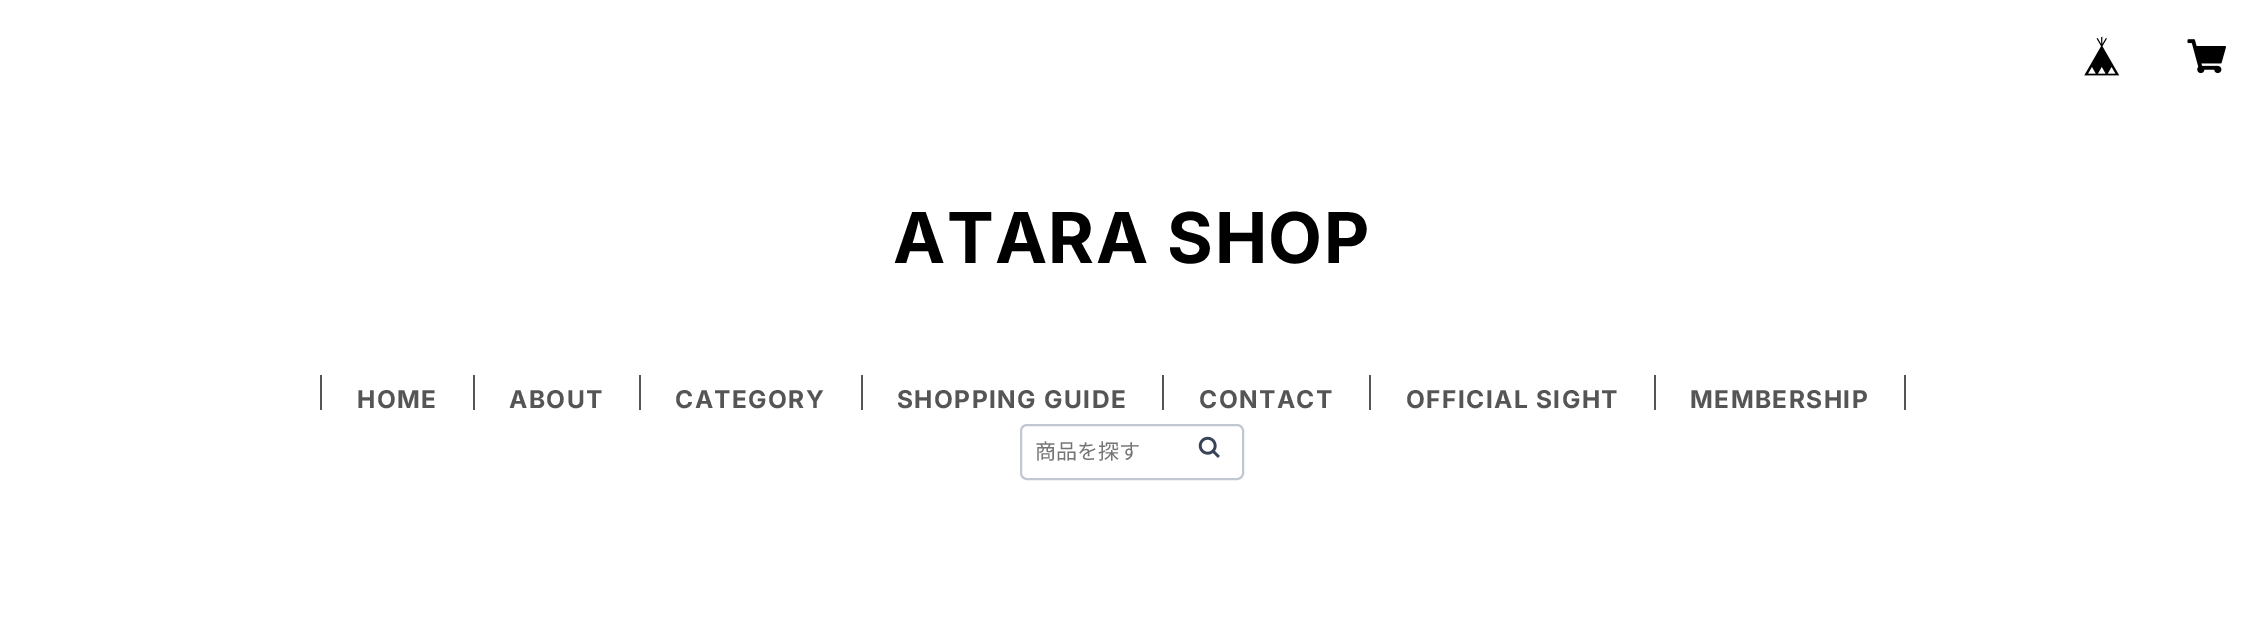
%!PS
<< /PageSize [2262 622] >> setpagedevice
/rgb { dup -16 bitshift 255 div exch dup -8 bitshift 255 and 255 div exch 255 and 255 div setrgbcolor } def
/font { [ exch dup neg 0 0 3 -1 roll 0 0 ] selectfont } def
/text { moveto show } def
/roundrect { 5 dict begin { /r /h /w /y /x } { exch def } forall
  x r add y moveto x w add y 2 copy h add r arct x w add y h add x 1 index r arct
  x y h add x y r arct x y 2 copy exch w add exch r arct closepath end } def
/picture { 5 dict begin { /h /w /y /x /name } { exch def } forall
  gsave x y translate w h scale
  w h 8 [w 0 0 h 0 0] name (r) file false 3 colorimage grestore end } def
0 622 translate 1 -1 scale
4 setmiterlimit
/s1 { /NotoSansJP-Regular 21 font 16#757575 rgb } def
16#FFFFFF rgb
0 0 2262 622 rectfill
(pic1.raw) 2084 36 36 40 picture
(pic2.raw) 2187 39 39 35 picture
/Inter-Bold 70 font
16#000000 rgb
893 263 moveto 1.4 0 (ATARA SHOP) ashow
16#555555 rgb
473 375 2 35 rectfill
320 375 2 35 rectfill
/Inter-Bold 24.5 font
357 408 moveto 1.4 0 (HOME) ashow
639 375 2 35 rectfill
509 408 moveto 1.4 0 (ABOUT) ashow
861 375 2 35 rectfill
675 408 moveto 1.4 0 (CATEGORY) ashow
1162 375 2 35 rectfill
897 408 moveto 1.4 0 (SHOPPING GUIDE) ashow
1369 375 2 35 rectfill
1199 408 moveto 1.4 0 (CONTACT) ashow
1654 375 2 35 rectfill
1406 408 moveto 1.4 0 (OFFICIAL SIGHT) ashow
1904 375 2 35 rectfill
1690 408 moveto 1.4 0 (MEMBERSHIP) ashow
16#C2C8D2 rgb
2 setlinewidth
1021 425 222 54 6 roundrect stroke
s1
(商品を探す) 1035 459 text
(pic3.raw) 1198 436 22 22 picture
showpage
